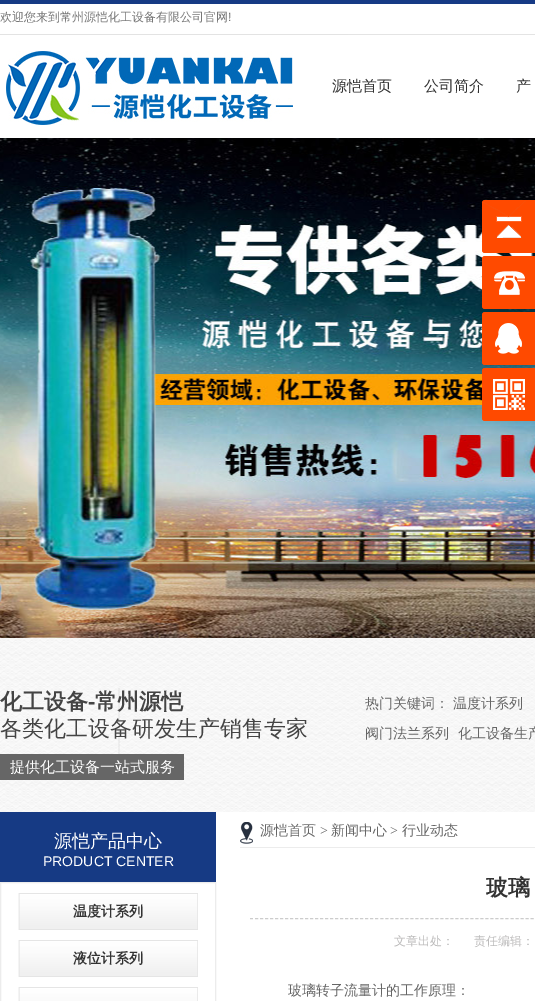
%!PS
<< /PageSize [535 1001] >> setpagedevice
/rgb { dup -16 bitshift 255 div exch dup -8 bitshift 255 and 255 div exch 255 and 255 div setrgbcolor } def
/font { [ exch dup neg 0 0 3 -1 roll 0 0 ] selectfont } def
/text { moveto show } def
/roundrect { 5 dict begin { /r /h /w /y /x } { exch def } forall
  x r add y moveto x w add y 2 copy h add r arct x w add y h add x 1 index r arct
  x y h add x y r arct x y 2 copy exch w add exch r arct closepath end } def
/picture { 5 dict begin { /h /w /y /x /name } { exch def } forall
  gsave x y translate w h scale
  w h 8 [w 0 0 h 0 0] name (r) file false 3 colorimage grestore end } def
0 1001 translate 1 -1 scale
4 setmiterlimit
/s1 { /WenQuanYiZenHei-Medium 12 font 16#777777 rgb } def
/s2 { /LiberationSans-Regular 12 font 16#777777 rgb } def
/s3 { /WenQuanYiZenHei-Medium 15 font 16#333333 rgb } def
/s4 { /WenQuanYiZenHei-Bold 22 font 16#444444 rgb } def
/s5 { /LiberationSans-Bold 22 font 16#444444 rgb } def
/s6 { /WenQuanYiZenHei-Medium 22 font 16#444444 rgb } def
/s7 { /WenQuanYiZenHei-Medium 15 font 16#FFFFFF rgb } def
/s8 { /WenQuanYiZenHei-Medium 14 font 16#666666 rgb } def
/s9 { /WenQuanYiZenHei-Medium 18 font 16#FFFFFF rgb } def
/s10 { /LiberationSans-Regular 14 font 16#FFFFFF rgb } def
/s11 { /WenQuanYiZenHei-Bold 14 font 16#333333 rgb } def
/s12 { /LiberationSerif-Regular 14 font 16#666666 rgb } def
/s13 { /WenQuanYiZenHei-Bold 22 font 16#333333 rgb } def
/s14 { /WenQuanYiZenHei-Medium 12 font 16#BCBBBB rgb } def
16#FFFFFF rgb
0 0 535 1001 rectfill
(pic1.raw) 0 0 535 35 picture
s1
(欢迎您来到常州源恺化工设备有限公司官网) 0 21 text
s2
(!) 228 21 text
(pic2.raw) 6 51 287 74 picture
s3
(源恺首页) 332 91 text
(公司简介) 424 91 text
(产) 516 91 text
(pic3.raw) 0 138 535 500 picture
16#FF4A00 rgb
482 200 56 53 3 roundrect fill
(pic4.raw) 482 200 44 53 picture
482 256 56 53 3 roundrect fill
(pic5.raw) 482 256 43 53 picture
482 312 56 53 3 roundrect fill
(pic6.raw) 482 312 40 53 picture
482 368 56 53 3 roundrect fill
(pic7.raw) 482 368 43 53 picture
(pic8.raw) 0 638 535 174 picture
s4
(化工设备) 0 709 text
s5
(-) 88 709 text
s4
(常州源恺) 95 709 text
s6
(各类化工设备研发生产销售专家) 0 736 text
16#666666 rgb
0 754 184 26 rectfill
s7
(提供化工设备一站式服务) 10 772 text
s8
(热门关键词：) 365 708 text
(温度计系列) 453 708 text
(阀门法兰系列) 365 738 text
(化工设备生产) 458 738 text
16#163A84 rgb
0 812 216 70 rectfill
s9
(源恺产品中心) 54 847 text
s10
(PRODUCT CENTER) 43 866 text
16#ECECEC rgb
0.5 882.5 215 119 rectstroke
(pic9.raw) 18 893 180 37 picture
s11
(温度计系列) 73 916 text
(pic9.raw) 18 940 180 37 picture
(液位计系列) 73 963 text
(pic10.raw) 18 987 180 14 picture
(pic11.raw) 240 822 13 22 picture
16#ECECEC rgb
240 847 295 1 rectfill
s8
(源恺首页) 260 835 text
s12
(>) 320 835 text
s8
(新闻中心) 331 835 text
s12
(>) 390 835 text
s8
(行业动态) 402 835 text
16#CCCCCC rgb
[3 2.01] 0 setdash
250 918.5 moveto 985 918.5 lineto stroke
s13
(玻璃) 486 895 text
s14
(文章出处：) 394 945 text
(责任编辑：) 474 945 text
s8
(玻璃转子流量计的工作原理：) 288 995 text
showpage
